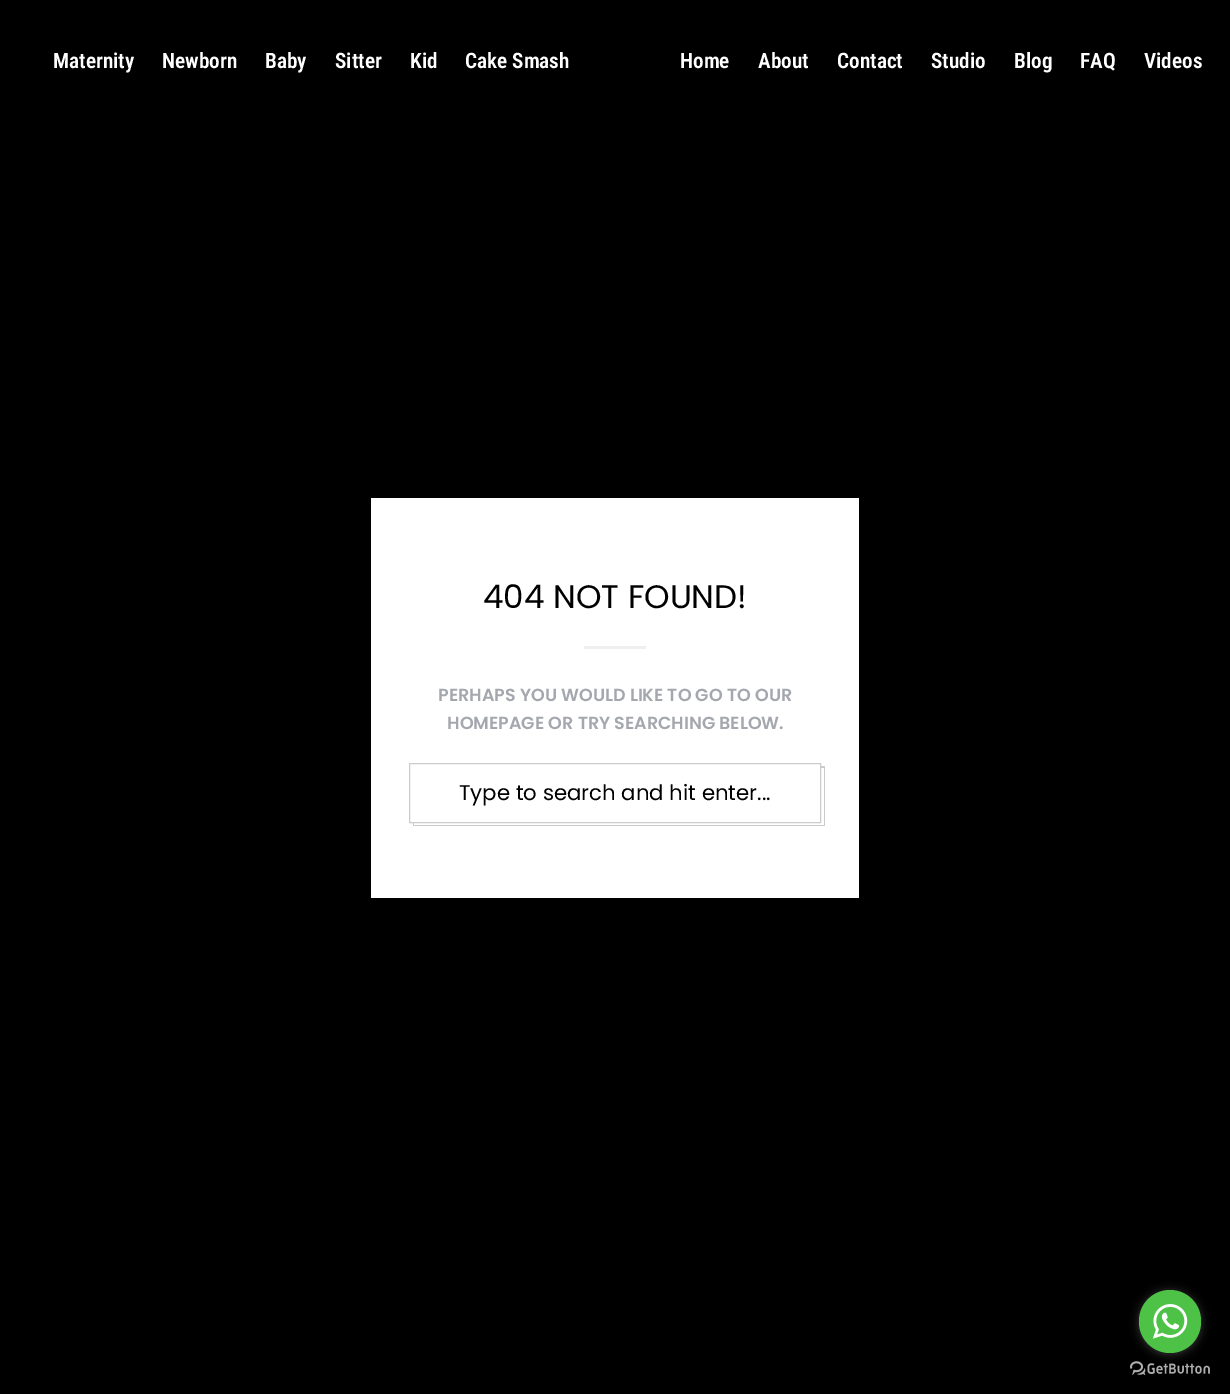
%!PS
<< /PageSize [1230 1394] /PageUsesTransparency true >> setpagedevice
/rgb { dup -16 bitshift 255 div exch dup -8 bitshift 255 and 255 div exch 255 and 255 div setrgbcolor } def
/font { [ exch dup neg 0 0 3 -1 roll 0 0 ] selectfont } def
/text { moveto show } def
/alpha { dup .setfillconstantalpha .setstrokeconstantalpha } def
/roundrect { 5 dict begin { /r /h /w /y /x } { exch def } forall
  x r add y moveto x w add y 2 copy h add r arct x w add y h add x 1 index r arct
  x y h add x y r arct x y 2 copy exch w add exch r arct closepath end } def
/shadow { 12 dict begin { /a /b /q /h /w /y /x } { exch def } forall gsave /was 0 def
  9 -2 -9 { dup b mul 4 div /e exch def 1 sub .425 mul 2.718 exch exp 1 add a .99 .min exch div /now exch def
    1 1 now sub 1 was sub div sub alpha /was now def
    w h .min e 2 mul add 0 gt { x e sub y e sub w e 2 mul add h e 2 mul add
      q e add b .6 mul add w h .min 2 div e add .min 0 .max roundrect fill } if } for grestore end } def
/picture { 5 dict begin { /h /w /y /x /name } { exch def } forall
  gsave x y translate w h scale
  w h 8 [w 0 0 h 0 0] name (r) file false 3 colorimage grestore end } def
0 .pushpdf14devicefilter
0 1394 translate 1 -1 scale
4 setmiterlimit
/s1 { /RobotoCondensed-SemiBold 21.25 font 16#FFFFFF rgb } def
/s2 { /Poppins-Regular 32.5 font 16#000000 rgb } def
/s3 { /Poppins-SemiBold 17.5 font 16#A4A7AD rgb } def
/s4 { /Poppins-Regular 21.25 font 16#000000 rgb } def
16#000000 rgb
0 0 1230 1394 rectfill
s1
(Maternity) 53 68 text
(Newborn) 162 68 text
(Baby) 265 68 text
(Sitter) 335 68 text
(Kid) 410 68 text
(Cake Smash) 465 68 text
(Home) 680 68 text
(About) 758 68 text
(Contact) 837 68 text
(Studio) 931 68 text
(Blog) 1014 68 text
(FAQ) 1080 68 text
(Videos) 1144 68 text
371 498 488 400 rectfill
s2
(404 NOT FOUND!) 483 608 text
16#F0EFEF rgb
584 646 62 3 rectfill
s3
(PERHAPS YOU WOULD LIKE TO GO TO OUR) 438 701 text
(HOMEPAGE OR TRY SEARCHING BELOW.) 447 729 text
16#CCCCCC rgb
413 822 moveto 413 826 lineto 825 826 lineto 825 766 lineto 821 766 lineto 821 822 lineto closepath fill
16#FFFFFF rgb
414 822 moveto 414 825 lineto 824 825 lineto 824 768 lineto 821 768 lineto 821 822 lineto closepath fill
16#CCCCCC rgb
409.5 763.5 411 59 rectstroke
s4
(Type to search and hit enter...) 459 800 text
(pic2.raw) 1130 1361 80 14 picture
16#888888 rgb
1139 1291 62 63 31 4.5 0.4 shadow
16#4DC247 rgb
1139 1290 62 63 31 roundrect fill
(pic1.raw) 1152 1304 36 35 picture
.poppdf14devicefilter showpage
